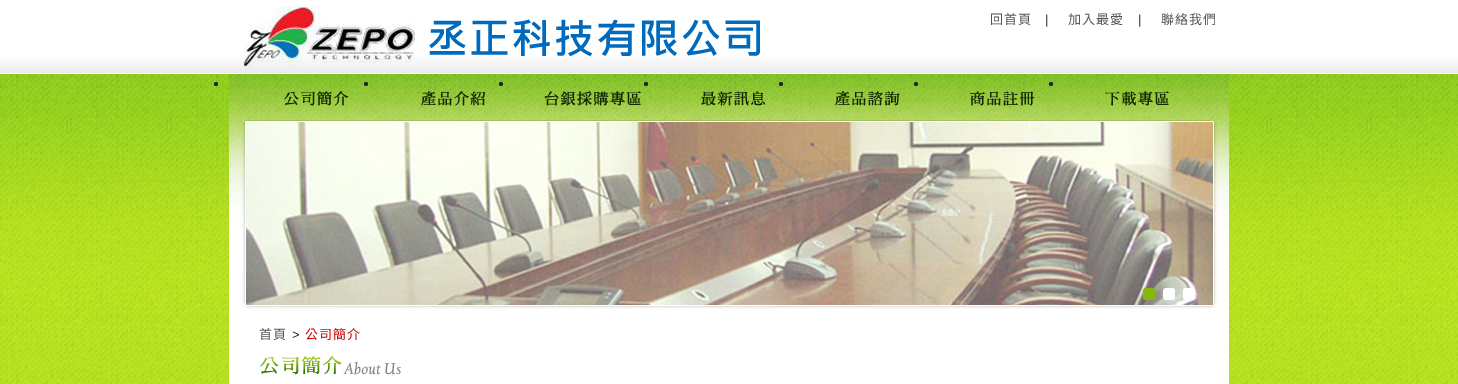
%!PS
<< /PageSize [1458 384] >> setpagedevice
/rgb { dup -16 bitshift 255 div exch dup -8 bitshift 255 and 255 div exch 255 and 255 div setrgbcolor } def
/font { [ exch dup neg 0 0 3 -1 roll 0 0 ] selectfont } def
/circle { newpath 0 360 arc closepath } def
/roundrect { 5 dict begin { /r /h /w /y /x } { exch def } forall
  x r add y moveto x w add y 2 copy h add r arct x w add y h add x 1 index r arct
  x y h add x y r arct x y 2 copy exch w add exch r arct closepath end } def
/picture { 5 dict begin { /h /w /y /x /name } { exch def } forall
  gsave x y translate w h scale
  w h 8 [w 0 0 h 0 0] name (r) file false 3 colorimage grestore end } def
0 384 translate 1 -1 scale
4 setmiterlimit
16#FFFFFF rgb
0 0 1458 384 rectfill
(pic1.raw) 0 58 1458 326 picture
(pic2.raw) 238 7 526 60 picture
/NotoSansCJKTC-Regular 13 font
16#555555 rgb
990 24 moveto 1 0 (回首頁) ashow
/LiberationSans-Regular 13 font
16#242424 rgb
1045 24 moveto 1 0 (|) ashow
/NotoSansCJKTC-Regular 13 font
16#555555 rgb
1068 24 moveto 1 0 (加入最愛) ashow
/LiberationSans-Regular 13 font
16#242424 rgb
1138 24 moveto 1 0 (|) ashow
/NotoSansCJKTC-Regular 13 font
16#555555 rgb
1161 24 moveto 1 0 (聯絡我們) ashow
(pic3.raw) 229 74 1000 46 picture
16#242424 rgb
216 84 2 circle fill
(pic4.raw) 256 74 123 46 picture
366 84 2 circle fill
(pic5.raw) 391 74 123 46 picture
501 84 2 circle fill
(pic6.raw) 526 74 133 46 picture
646 84 2 circle fill
(pic7.raw) 671 74 123 46 picture
781 84 2 circle fill
(pic8.raw) 806 74 123 46 picture
916 84 2 circle fill
(pic9.raw) 941 74 123 46 picture
1051 84 2 circle fill
(pic10.raw) 1076 74 123 46 picture
(pic11.raw) 229 120 1000 190 picture
(pic12.raw) 246 122 967 183 picture
16#86B80B rgb
1143 288 12 12 3 roundrect fill
16#FFFFFF rgb
1163 288 12 12 3 roundrect fill
1183 288 12 12 3 roundrect fill
229 310 1000 74 rectfill
16#555555 rgb
259 339 moveto 1 0 (首頁) ashow
/LiberationSans-Regular 13 font
16#242424 rgb
292 339 moveto 1 0 (>) ashow
/NotoSansCJKTC-Regular 13 font
16#CB0000 rgb
305 339 moveto 1 0 (公司簡介) ashow
(pic13.raw) 260 356 141 19 picture
showpage
